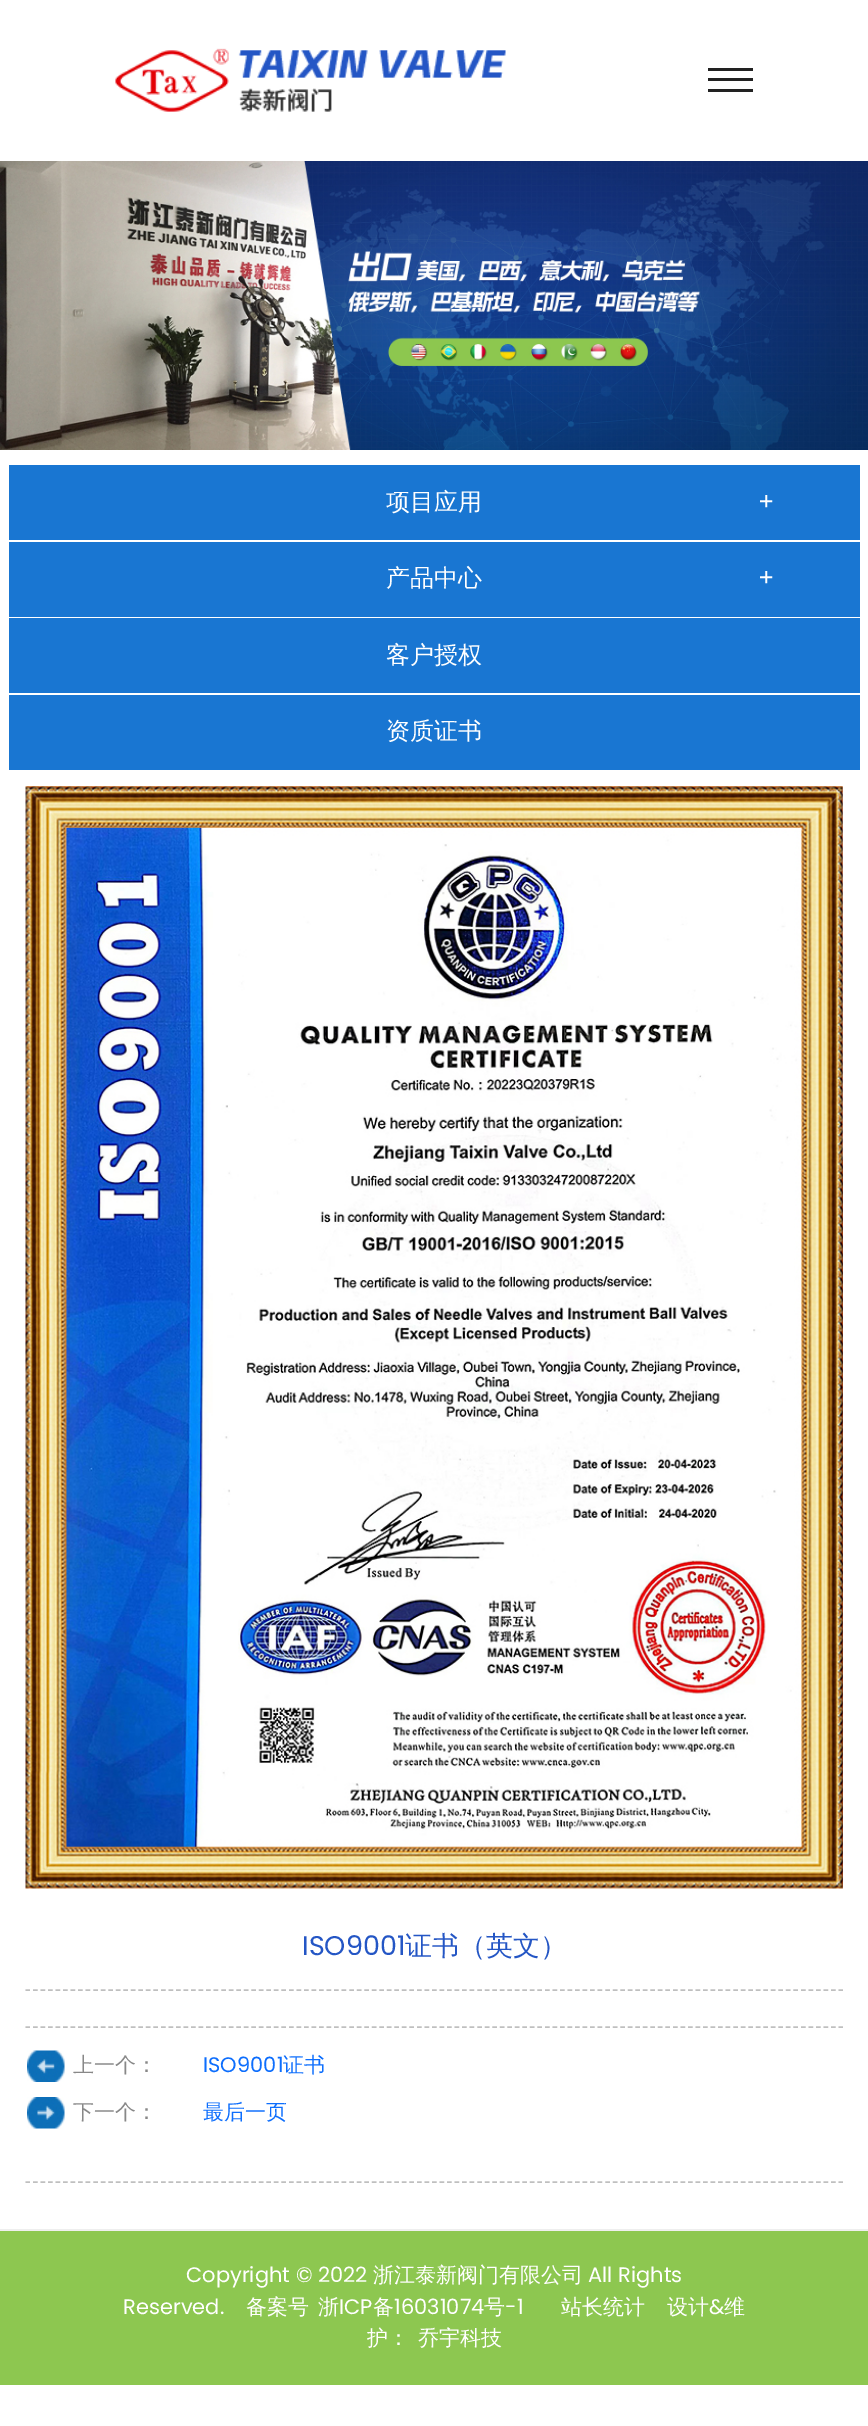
%!PS
<< /PageSize [868 2426] >> setpagedevice
/rgb { dup -16 bitshift 255 div exch dup -8 bitshift 255 and 255 div exch 255 and 255 div setrgbcolor } def
/font { [ exch dup neg 0 0 3 -1 roll 0 0 ] selectfont } def
/text { moveto show } def
/picture { 5 dict begin { /h /w /y /x /name } { exch def } forall
  gsave x y translate w h scale
  w h 8 [w 0 0 h 0 0] name (r) file false 3 colorimage grestore end } def
0 2426 translate 1 -1 scale
4 setmiterlimit
/s1 { /WenQuanYiZenHei-Medium 24 font 16#FFFFFF rgb } def
/s2 { /Poppins-Regular 24 font 16#FFFFFF rgb } def
/s3 { /Poppins-Regular 27 font 16#2456C5 rgb } def
/s4 { /WenQuanYiZenHei-Medium 27 font 16#2456C5 rgb } def
/s5 { /WenQuanYiZenHei-Medium 21 font 16#888888 rgb } def
/s6 { /Poppins-Regular 21 font 16#0D6EFD rgb } def
/s7 { /WenQuanYiZenHei-Medium 21 font 16#0D6EFD rgb } def
/s8 { /Poppins-Regular 21 font 16#FFFFFF rgb } def
/s9 { /WenQuanYiZenHei-Medium 21 font 16#FFFFFF rgb } def
16#FFFFFF rgb
0 0 868 2426 rectfill
(pic1.raw) 115 48 391 64 picture
16#222222 rgb
708 68 45 3 rectfill
708 78 45 3 rectfill
708 89 45 3 rectfill
(pic2.raw) 0 161 868 289 picture
16#1976D2 rgb
9 465 851 75 rectfill
s1
(项目应用) 386 510 text
s2
(+) 758 510 text
16#1976D2 rgb
9 542 851 75 rectfill
s1
(产品中心) 386 586 text
s2
(+) 758 586 text
16#1976D2 rgb
9 618 851 75 rectfill
s1
(客户授权) 386 663 text
16#1976D2 rgb
9 695 851 75 rectfill
s1
(资质证书) 386 739 text
(pic3.raw) 25 786 818 1103 picture
16#BFBFBF rgb
1.5 setlinewidth
[4.5 3.03] 0 setdash
25.5 1990 moveto 843 1990 lineto stroke
s3
(ISO9001) 302 1955 text
s4
(证书（英文）) 405 1955 text
16#BFBFBF rgb
25.5 2027 moveto 843 2027 lineto stroke
25.5 2182 moveto 843 2182 lineto stroke
(pic4.raw) 27 2050 38 32 picture
s5
(上一个：) 73 2072 text
s6
(ISO9001) 203 2072 text
s7
(证书) 283 2072 text
(pic5.raw) 27 2097 38 32 picture
s5
(下一个：) 73 2119 text
s7
(最后一页) 203 2119 text
16#EEEEEE rgb
0 2229 868 2 rectfill
16#8DC750 rgb
0 2231 868 154 rectfill
s8
(Copyright © 2022) 186 2282 text
s9
(浙江泰新阀门有限公司) 373 2282 text
s8
(All Rights) 588 2282 text
(Reserved.) 123 2314 text
s9
(备案号) 246 2314 text
(浙) 318 2314 text
s8
(ICP) 339 2314 text
s9
(备) 373 2314 text
s8
(16031074) 394 2314 text
s9
(号) 484 2314 text
s8
(-1) 505 2314 text
s9
(站长统计) 561 2314 text
(设计) 667 2314 text
s8
(&) 709 2314 text
s9
(维) 724 2314 text
(护：) 367 2345 text
(乔宇科技) 418 2345 text
showpage
